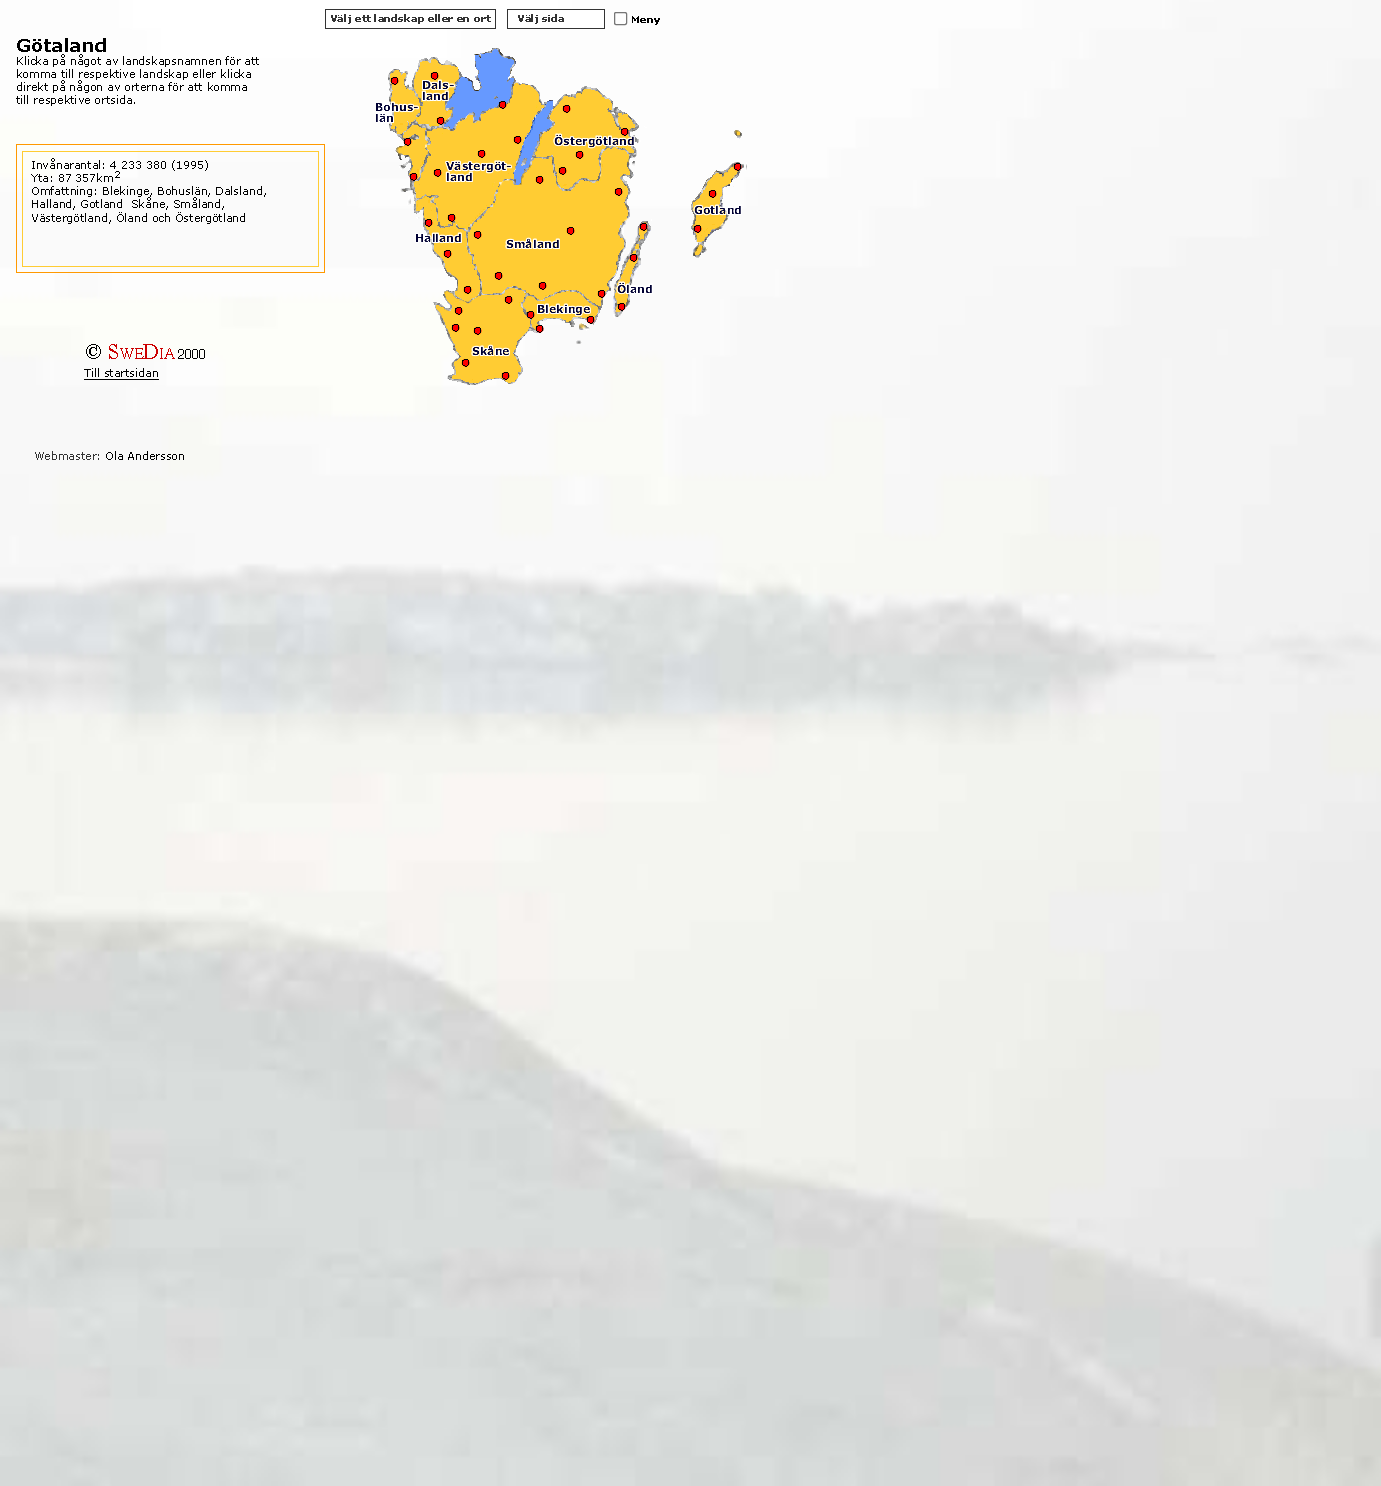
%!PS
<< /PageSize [1381 1486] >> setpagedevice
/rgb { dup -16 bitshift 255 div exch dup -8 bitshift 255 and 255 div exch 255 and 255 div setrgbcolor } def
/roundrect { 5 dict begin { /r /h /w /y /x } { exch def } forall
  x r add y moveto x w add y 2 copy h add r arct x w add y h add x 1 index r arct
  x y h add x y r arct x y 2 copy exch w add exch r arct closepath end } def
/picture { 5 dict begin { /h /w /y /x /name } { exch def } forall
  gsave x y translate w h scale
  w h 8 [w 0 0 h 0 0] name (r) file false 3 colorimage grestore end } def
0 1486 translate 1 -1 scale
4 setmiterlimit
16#FFFFFF rgb
0 0 1381 1486 rectfill
(pic1.raw) 0 0 1381 1486 picture
(pic2.raw) 325 9 171 20 picture
(pic3.raw) 507 9 98 20 picture
16#767676 rgb
614.5 12.5 12 12 1.5 roundrect stroke
(pic4.raw) 632 16 28 9 picture
(pic5.raw) 17 38 89 14 picture
(pic6.raw) 16 54 243 52 picture
(pic7.raw) 16 144 309 129 picture
(pic8.raw) 376 48 371 337 picture
(pic9.raw) 86 344 119 15 picture
(pic10.raw) 84 368 75 12 picture
(pic11.raw) 35 451 149 9 picture
showpage
